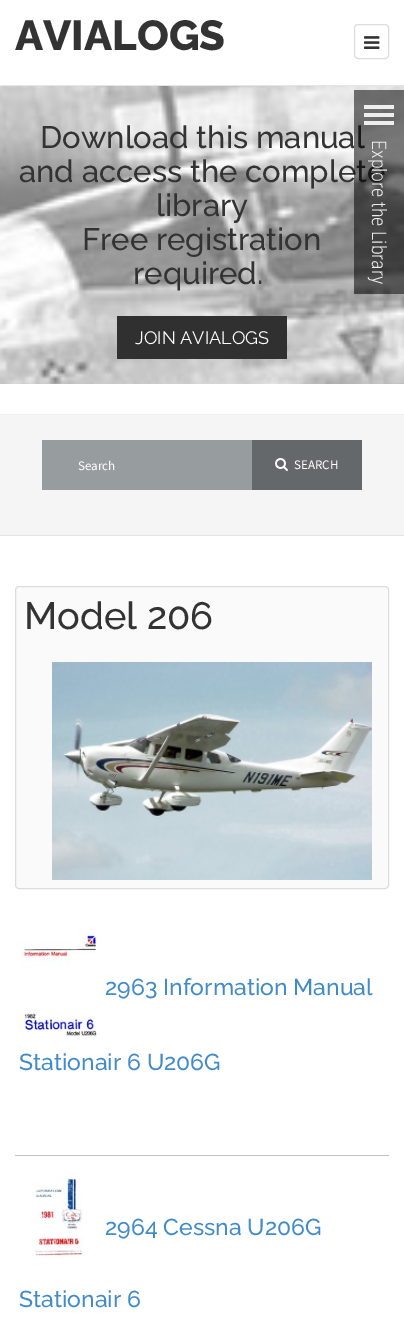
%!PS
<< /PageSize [404 1319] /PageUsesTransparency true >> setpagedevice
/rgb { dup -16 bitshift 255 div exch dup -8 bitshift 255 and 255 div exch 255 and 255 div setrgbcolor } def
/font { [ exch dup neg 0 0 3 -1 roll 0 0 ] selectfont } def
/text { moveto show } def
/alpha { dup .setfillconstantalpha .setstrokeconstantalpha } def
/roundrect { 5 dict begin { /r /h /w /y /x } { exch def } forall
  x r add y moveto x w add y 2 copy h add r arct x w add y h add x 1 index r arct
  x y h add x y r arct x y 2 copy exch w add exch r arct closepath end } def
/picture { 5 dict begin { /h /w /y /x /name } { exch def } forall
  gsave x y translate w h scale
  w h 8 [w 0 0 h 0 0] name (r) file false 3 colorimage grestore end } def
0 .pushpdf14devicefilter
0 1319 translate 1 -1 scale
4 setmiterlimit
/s1 { /Raleway-ExtraBold 42 font 16#333333 rgb } def
/s2 { /Raleway-Medium 31 font 16#333333 rgb } def
/s3 { /Raleway-Regular 18 font 16#FFFFFF rgb } def
/s4 { /SourceSansPro-Regular 13 font 16#FFFFFF rgb } def
/s5 { /Raleway-Medium 38 font 16#333333 rgb } def
/s6 { /Raleway-Medium 23 font 16#428BCA rgb } def
16#FFFFFF rgb
0 0 404 1319 rectfill
16#E5E5E5 rgb
0 85 404 1 rectfill
s1
(AVIALOGS) 15 50 text
16#DDDDDD rgb
354.5 24.5 34 34 3.5 roundrect stroke
(pic1.raw) 364 36 16 13 picture
(pic2.raw) 0 86 404 298 picture
s2
(Download this manual) 40 148 text
(and access the complete) 19 182 text
(library) 156 216 text
(Free registration) 82 250 text
(required.) 133 284 text
16#303030 rgb
117 316 170 43 rectfill
s3
(JOIN AVIALOGS) 135 344 text
16#F5F5F5 rgb
0 415 404 120 rectfill
16#EEEEEE rgb
0 414 404 1 rectfill
16#E5E5E5 rgb
0 535 404 1 rectfill
16#979D9F rgb
42 440 210 50 rectfill
s4
(Search) 78 470 text
16#64686A rgb
252 440 110 50 rectfill
(pic3.raw) 275 458 13 13 picture
s4
(SEARCH) 294 469 text
16#FAFAFA rgb
15.5 586.5 373 302 3.5 roundrect gsave fill grestore
16#DDDDDD rgb
stroke
s5
(Model 206) 24 629 text
(pic4.raw) 52 662 320 218 picture
16#C0C0C0 rgb
15 1155 374 1 rectfill
(pic5.raw) 19 929 78 120 picture
s6
(2963 Information Manual) 105 995 text
(Stationair 6 U206G) 19 1070 text
(pic6.raw) 32 1172 51 88 picture
(2964 Cessna U206G) 105 1235 text
(Stationair 6) 19 1307 text
0.53 alpha
16#000000 rgb
354 90 50 50 rectfill
1 alpha
16#EEEEEE rgb
364 105 30 4 rectfill
364 113 30 4 rectfill
364 121 30 4 rectfill
0.53 alpha
16#000000 rgb
354 140 50 154 rectfill
/RobotoCondensed-Light 20 font
1 alpha
16#EEEEEE rgb
gsave 372 140 translate 90 rotate 0 0 moveto (Explore the Library) show grestore
.poppdf14devicefilter showpage
